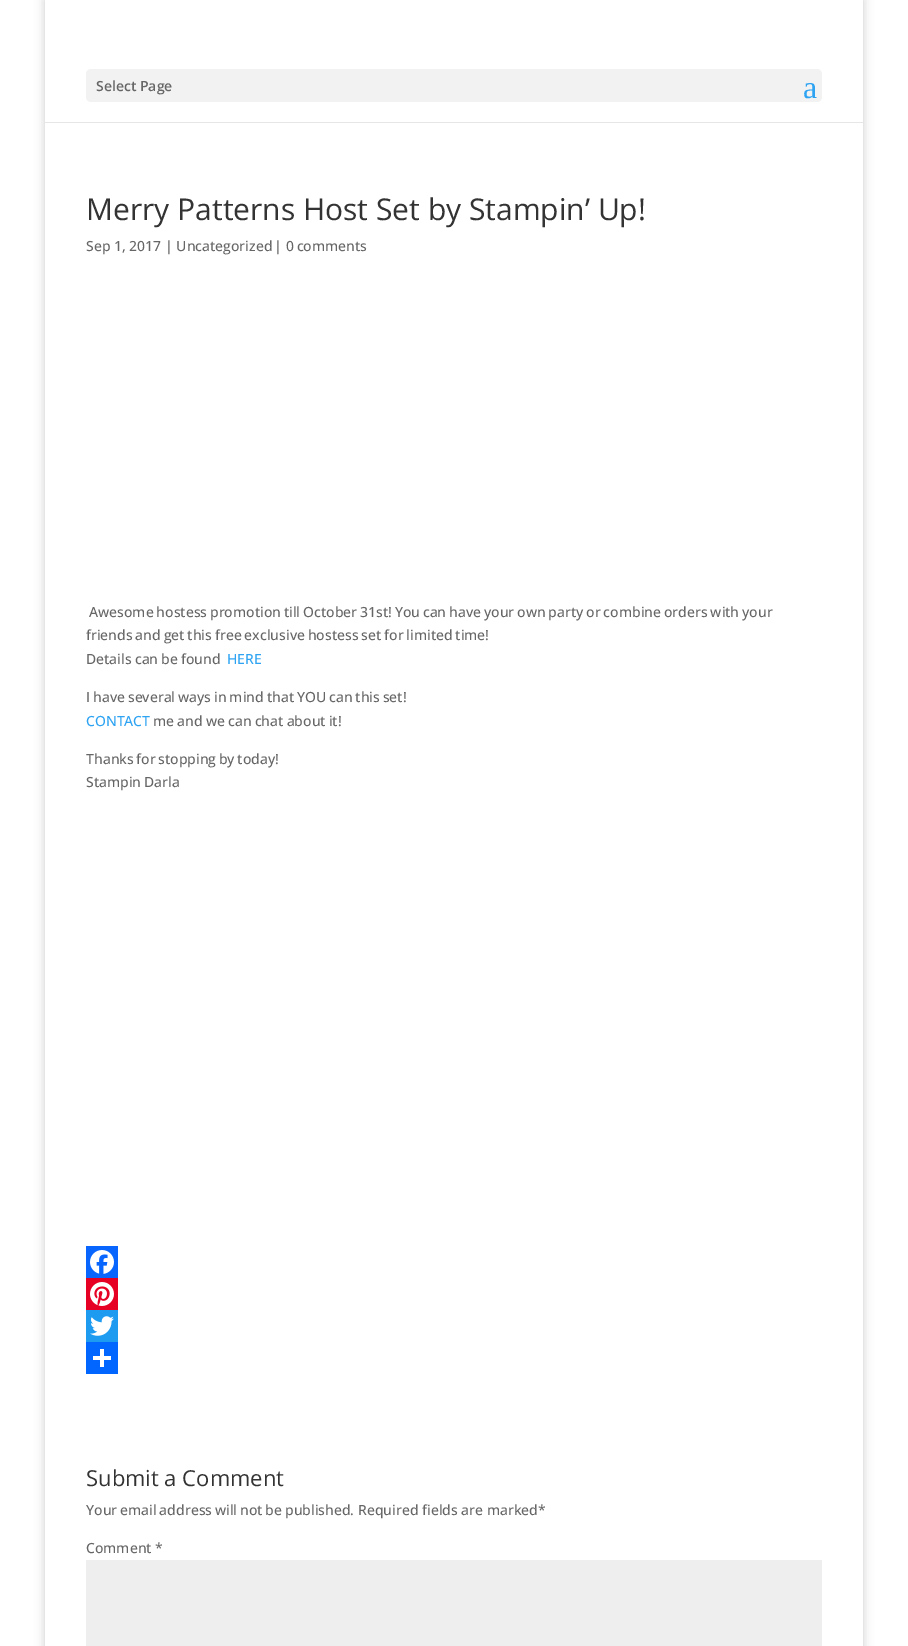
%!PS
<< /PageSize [908 1646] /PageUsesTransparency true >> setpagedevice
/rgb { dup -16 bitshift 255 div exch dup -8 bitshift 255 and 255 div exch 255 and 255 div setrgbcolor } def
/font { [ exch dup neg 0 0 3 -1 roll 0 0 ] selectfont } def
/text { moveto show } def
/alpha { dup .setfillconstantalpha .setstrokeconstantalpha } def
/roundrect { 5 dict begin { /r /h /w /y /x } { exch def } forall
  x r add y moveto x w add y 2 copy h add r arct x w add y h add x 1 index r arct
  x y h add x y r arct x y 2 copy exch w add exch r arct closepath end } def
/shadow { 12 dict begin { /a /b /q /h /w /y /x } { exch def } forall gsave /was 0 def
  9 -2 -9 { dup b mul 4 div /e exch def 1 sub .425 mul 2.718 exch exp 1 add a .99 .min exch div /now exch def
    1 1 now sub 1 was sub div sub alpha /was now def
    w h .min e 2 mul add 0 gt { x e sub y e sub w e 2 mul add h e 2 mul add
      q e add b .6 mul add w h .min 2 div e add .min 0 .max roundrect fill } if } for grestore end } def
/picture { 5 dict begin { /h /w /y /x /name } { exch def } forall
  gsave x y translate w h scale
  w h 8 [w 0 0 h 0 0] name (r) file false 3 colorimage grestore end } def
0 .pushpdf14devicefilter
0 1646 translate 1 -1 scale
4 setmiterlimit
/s1 { /OpenSans-SemiBold 14 font 16#666666 rgb } def
/s2 { /LiberationSerif-Regular 32 font 16#2EA3F2 rgb } def
/s3 { /OpenSans-Regular 30 font 16#333333 rgb } def
/s4 { /OpenSans-Medium 14 font 16#666666 rgb } def
/s5 { /OpenSans-Medium 14 font 16#2EA3F2 rgb } def
/s6 { /OpenSans-Regular 22 font 16#333333 rgb } def
16#FFFFFF rgb
0 0 908 1646 rectfill
gsave
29 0 moveto 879 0 lineto 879 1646 lineto 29 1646 lineto closepath 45 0 moveto 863 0 lineto 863 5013 lineto 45 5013 lineto closepath eoclip newpath
16#000000 rgb
45 0 818 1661 0 5 0.2 shadow
grestore
16#E6E6E6 rgb
45 122 818 1 rectfill
16#F2F2F2 rgb
86 69 736 33 5 roundrect fill
s1
(Select Page) 96 91 text
s2
(a) 803 98 text
s3
(Merry Patterns Host Set by Stampin’ Up!) 86 220 text
s4
(Sep 1, 2017 | Uncategorized) 86 251 text
(|) 274 251 text
286 251 moveto -1 0 32 (0 comments) widthshow
89 617 moveto -0.75 0 32 (Awesome hostess promotion till October 31st! You can have your own party or combine orders with your) widthshow
86 640 moveto -0.75 0 32 (friends and get this free exclusive hostess set for limited time!) widthshow
86 664 moveto -0.5 0 32 (Details can be found) widthshow
s5
(HERE) 227 664 text
16#666666 rgb
86 702 moveto -0.75 0 32 (I have several ways in mind that YOU can this set!) widthshow
s5
(CONTACT) 86 726 text
16#666666 rgb
153 726 moveto -0.5 0 32 (me and we can chat about it!) widthshow
86 764 moveto -1 0 32 (Thanks for stopping by today!) widthshow
86 787 moveto -1 0 32 (Stampin Darla) widthshow
16#0866FF rgb
86 1246 32 32 rectfill
(pic1.raw) 90 1250 24 24 picture
16#E60023 rgb
86 1278 32 32 rectfill
(pic2.raw) 90 1282 24 24 picture
16#1D9BF0 rgb
86 1310 32 32 rectfill
(pic3.raw) 90 1316 24 20 picture
16#0166FF rgb
86 1342 32 32 rectfill
16#FFFFFF rgb
100 1349 4 18 rectfill
93 1356 18 4 rectfill
s6
(Submit a Comment) 86 1486 text
/OpenSans-Medium 14 font
16#666666 rgb
86 1515 moveto -0.75 0 32 (Your email address will not be published.) widthshow
(Required fields are marked) 358 1515 text
(*) 538 1515 text
(Comment) 86 1553 text
(*) 155 1553 text
16#EEEEEE rgb
86 1560 736 86 rectfill
.poppdf14devicefilter showpage
